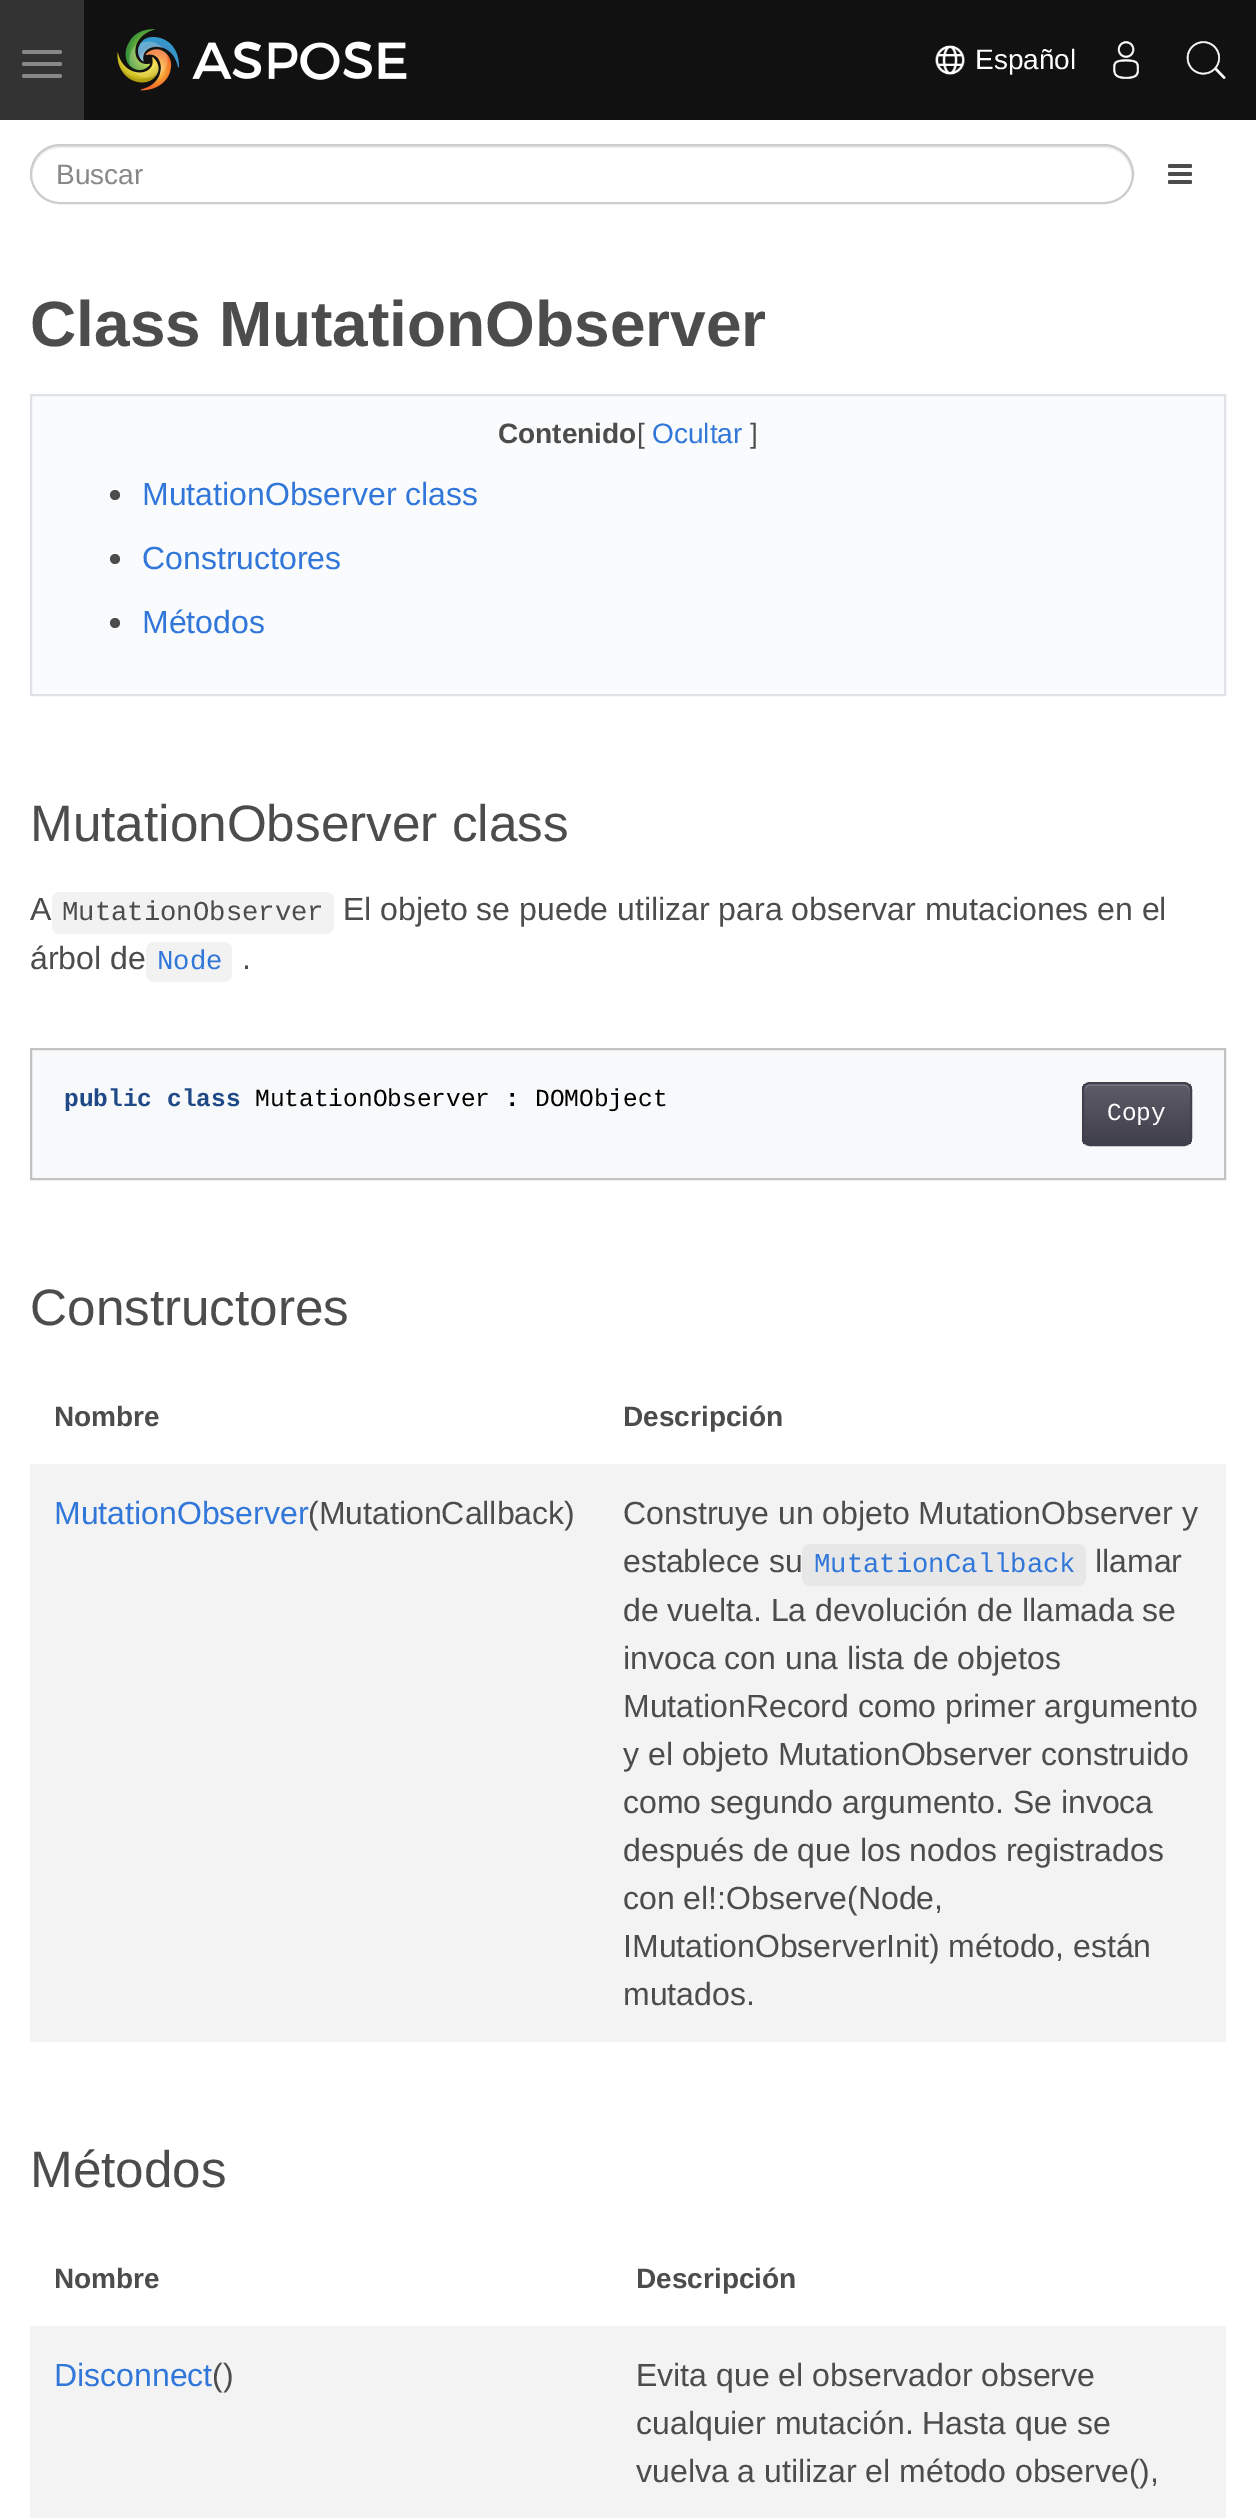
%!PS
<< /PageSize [1256 2518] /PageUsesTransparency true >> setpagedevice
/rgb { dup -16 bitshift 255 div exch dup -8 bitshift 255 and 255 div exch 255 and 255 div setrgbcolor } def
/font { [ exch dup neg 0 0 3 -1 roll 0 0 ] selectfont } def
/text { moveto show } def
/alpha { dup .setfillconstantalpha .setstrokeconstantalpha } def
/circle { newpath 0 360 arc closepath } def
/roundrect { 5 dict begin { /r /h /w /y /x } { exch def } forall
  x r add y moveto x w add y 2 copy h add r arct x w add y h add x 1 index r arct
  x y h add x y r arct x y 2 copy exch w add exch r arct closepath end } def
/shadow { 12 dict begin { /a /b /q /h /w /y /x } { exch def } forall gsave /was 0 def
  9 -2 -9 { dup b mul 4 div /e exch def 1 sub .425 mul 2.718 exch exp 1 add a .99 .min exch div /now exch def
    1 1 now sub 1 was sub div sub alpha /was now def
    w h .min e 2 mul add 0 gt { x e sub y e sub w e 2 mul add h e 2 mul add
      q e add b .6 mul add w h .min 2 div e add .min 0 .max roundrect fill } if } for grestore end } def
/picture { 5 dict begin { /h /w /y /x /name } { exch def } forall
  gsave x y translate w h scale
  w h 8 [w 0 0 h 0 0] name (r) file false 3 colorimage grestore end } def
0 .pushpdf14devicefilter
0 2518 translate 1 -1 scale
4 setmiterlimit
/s1 { /LiberationSans-Regular 28 font 16#FFFFFF rgb } def
/s2 { /LiberationSans-Regular 28 font 16#888888 rgb } def
/s3 { /LiberationSans-Bold 64 font 16#4C4C4C rgb } def
/s4 { /LiberationSans-Bold 28 font 16#4C4C4C rgb } def
/s5 { /LiberationSans-Regular 28 font 16#4C4C4C rgb } def
/s6 { /LiberationSans-Regular 28 font 16#3176D9 rgb } def
/s7 { /LiberationSans-Regular 32 font 16#3176D9 rgb } def
/s8 { /LiberationSans-Regular 51.25 font 16#4C4C4C rgb } def
/s9 { /LiberationSans-Regular 32 font 16#4C4C4C rgb } def
/s10 { /LiberationMono-Regular 27.25 font 16#4C4C4C rgb } def
/s11 { /LiberationMono-Regular 27.25 font 16#3176D9 rgb } def
/s12 { /LiberationMono-Bold 24.5 font 16#204A87 rgb } def
/s13 { /LiberationMono-Regular 24.5 font 16#000000 rgb } def
/s14 { /LiberationMono-Bold 24.5 font 16#000000 rgb } def
/s15 { /LiberationMono-Regular 24.5 font 16#FFFFFF rgb } def
16#FFFFFF rgb
0 0 1256 2518 rectfill
16#111111 rgb
84 0 1172 120 rectfill
16#333333 rgb
0 0 84 120 rectfill
16#888888 rgb
22 50 40 4 2 roundrect fill
22 62 40 4 2 roundrect fill
22 74 40 4 2 roundrect fill
(pic1.raw) 117 29 290 62 picture
(pic2.raw) 935 45 30 30 picture
s1
(Español) 975 69 text
(pic3.raw) 1113 41 26 38 picture
(pic4.raw) 1186 41 40 38 picture
16#ECECEC rgb
60 148 moveto 1104 148 lineto 1123 148 1133 165 1131 180 curveto 1132 174 lineto 1132 159 1119 146 1104 146 curveto 60 146 lineto 45 146 32 159 32 174 curveto 32 178 lineto 32 163 42 148 60 148 curveto closepath fill
16#CCCCCC rgb
2 setlinewidth
31 145 1102 58 29 roundrect stroke
s2
(Buscar) 56 184 text
(pic5.raw) 1168 164 24 20 picture
s3
(Class MutationObserver) 30 346 text
16#FAFBFC rgb
31 395 moveto 1225 395 lineto 1225 695 lineto 31 695 lineto closepath gsave fill grestore
16#DEE2E6 rgb
stroke
s4
(Contenido) 498 443 text
s5
([) 637 443 text
s6
(Ocultar) 652 443 text
s5
(]) 750 443 text
115 495 5 circle fill
s7
(MutationObserver class) 142 505 text
16#4C4C4C rgb
115 559 5 circle fill
s7
(Constructores) 142 569 text
16#4C4C4C rgb
115 623 5 circle fill
s7
(Métodos) 142 633 text
s8
(MutationObserver class) 30 841 text
s9
(A) 30 920 text
16#F2F2F2 rgb
52 892 282 42 8 roundrect fill
s10
(MutationObserver) 62 920 text
s9
(El objeto se puede utilizar para observar mutaciones en el) 343 920 text
(árbol de) 30 969 text
16#F2F2F2 rgb
146 942 86 40 8 roundrect fill
s11
(Node) 157 969 text
s9
(.) 242 969 text
16#F8F9FA rgb
31 1049 moveto 1225 1049 lineto 1225 1179 lineto 31 1179 lineto closepath gsave fill grestore
16#C2C2C2 rgb
stroke
s12
(public class) 64 1106 text
s13
(MutationObserver) 255 1106 text
s14
(:) 505 1106 text
s13
(DOMObject) 535 1106 text
gsave
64 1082 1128 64 rectclip
1082 1084 110 64 8 1 0.07 shadow
grestore
gsave
1082 1082 110 64 8 roundrect clip newpath
gsave 1082 1084 moveto 1192 1084 lineto 1192 1144 lineto 1082 1144 lineto closepath clip newpath
<< /ShadingType 2 /ColorSpace /DeviceRGB /Coords [1137 1084 1137 1144] /Extend [true true] /Function << /FunctionType 2 /Domain [0 1] /C0 [0.365 0.361 0.404] /C1 [0.251 0.247 0.298] /N 1 >> >> shfill grestore
grestore
0.15 alpha
16#FFFFFF rgb
1090 1086 moveto 1184 1086 lineto 1187 1086 1190 1089 1190 1092 curveto 1190 1080 1178 1084 1168 1084 curveto 1106 1084 lineto 1096 1084 1084 1080 1084 1092 curveto 1084 1089 1087 1086 1090 1086 curveto closepath fill
1 alpha
16#403F4C rgb
1083 1083 108 62 7 roundrect stroke
s15
(Copy) 1107 1120 text
s8
(Constructores) 30 1325 text
s4
(Nombre) 54 1426 text
(Descripción) 623 1426 text
16#F3F3F3 rgb
30 1464 1196 578 rectfill
s7
(MutationObserver) 54 1524 text
s9
(\(MutationCallback\)) 308 1524 text
(Construye un objeto MutationObserver y) 623 1524 text
(establece su) 623 1572 text
16#E7E7E7 rgb
802 1544 284 42 8 roundrect fill
s11
(MutationCallback) 814 1572 text
s9
(llamar) 1095 1572 text
(de vuelta. La devolución de llamada se) 623 1621 text
(invoca con una lista de objetos) 623 1669 text
(MutationRecord como primer argumento) 623 1717 text
(y el objeto MutationObserver construido) 623 1765 text
(como segundo argumento. Se invoca) 623 1813 text
(después de que los nodos registrados) 623 1861 text
(con el!:Observe\(Node,) 623 1909 text
(IMutationObserverInit\) método, están) 623 1957 text
(mutados.) 623 2005 text
s8
(Métodos) 30 2187 text
s4
(Nombre) 54 2288 text
(Descripción) 636 2288 text
16#F3F3F3 rgb
30 2326 1196 192 rectfill
s7
(Disconnect) 54 2386 text
s9
(\(\)) 212 2386 text
(Evita que el observador observe) 636 2386 text
(cualquier mutación. Hasta que se) 636 2434 text
(vuelva a utilizar el método observe\(\),) 636 2482 text
.poppdf14devicefilter showpage
